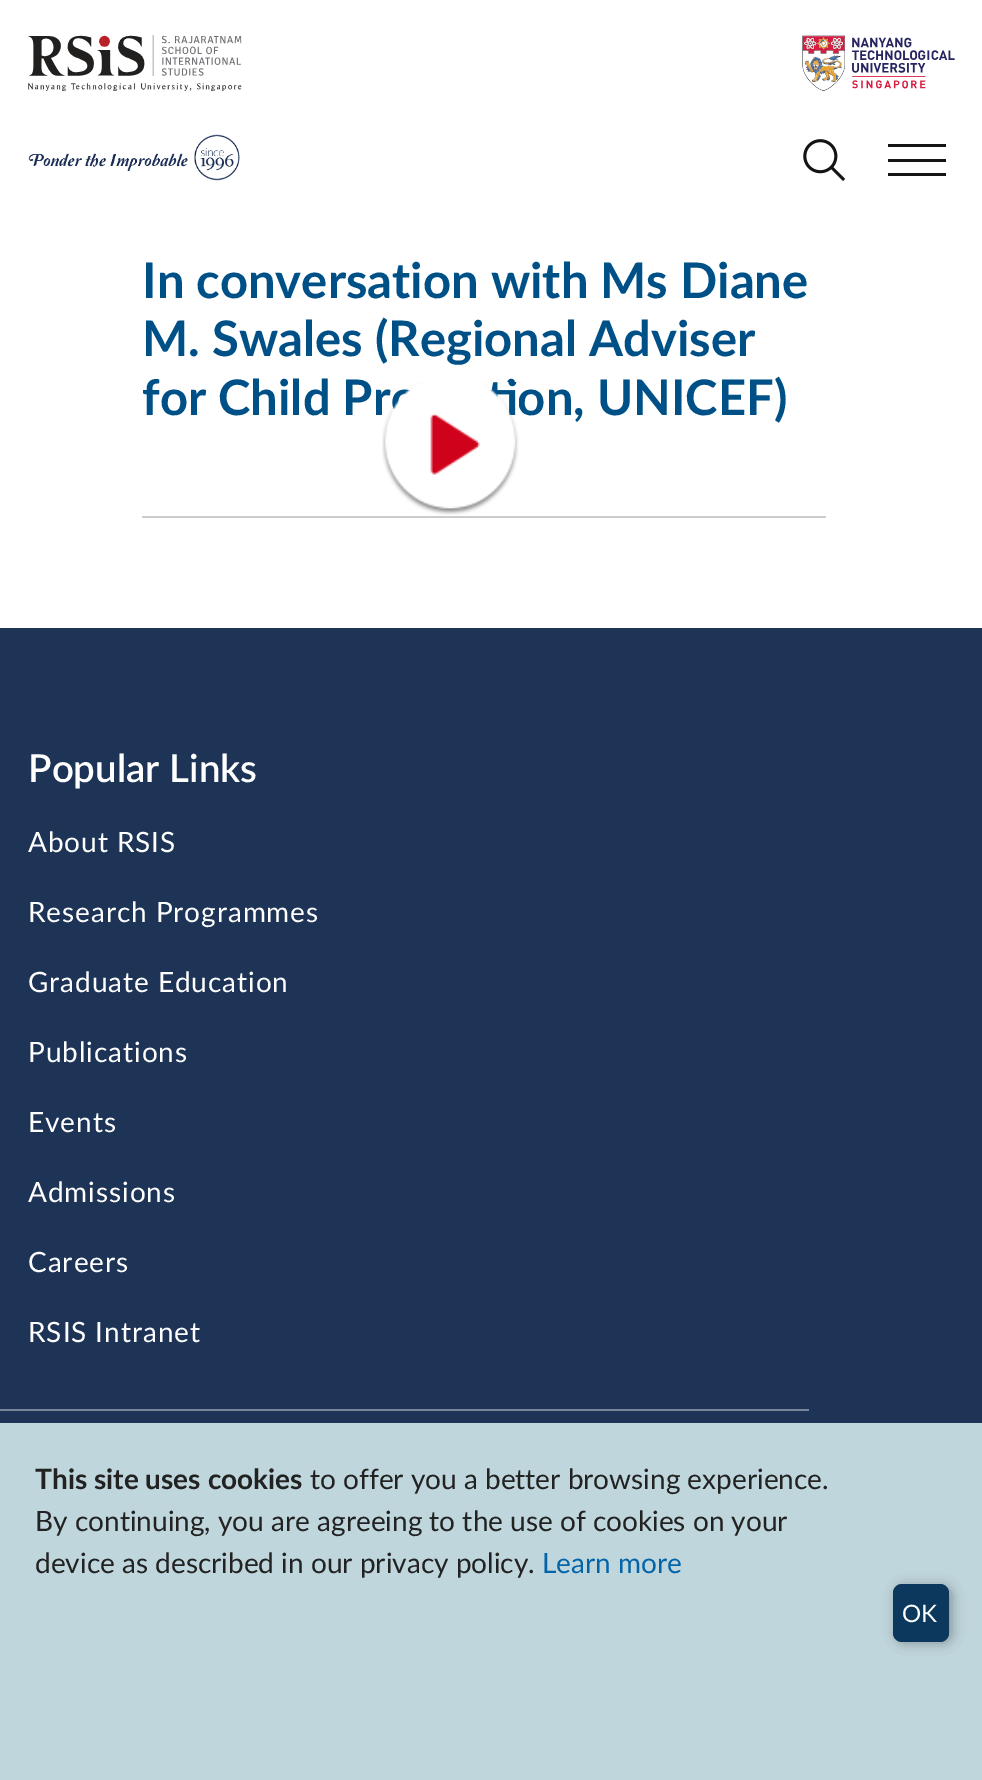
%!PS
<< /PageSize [982 1780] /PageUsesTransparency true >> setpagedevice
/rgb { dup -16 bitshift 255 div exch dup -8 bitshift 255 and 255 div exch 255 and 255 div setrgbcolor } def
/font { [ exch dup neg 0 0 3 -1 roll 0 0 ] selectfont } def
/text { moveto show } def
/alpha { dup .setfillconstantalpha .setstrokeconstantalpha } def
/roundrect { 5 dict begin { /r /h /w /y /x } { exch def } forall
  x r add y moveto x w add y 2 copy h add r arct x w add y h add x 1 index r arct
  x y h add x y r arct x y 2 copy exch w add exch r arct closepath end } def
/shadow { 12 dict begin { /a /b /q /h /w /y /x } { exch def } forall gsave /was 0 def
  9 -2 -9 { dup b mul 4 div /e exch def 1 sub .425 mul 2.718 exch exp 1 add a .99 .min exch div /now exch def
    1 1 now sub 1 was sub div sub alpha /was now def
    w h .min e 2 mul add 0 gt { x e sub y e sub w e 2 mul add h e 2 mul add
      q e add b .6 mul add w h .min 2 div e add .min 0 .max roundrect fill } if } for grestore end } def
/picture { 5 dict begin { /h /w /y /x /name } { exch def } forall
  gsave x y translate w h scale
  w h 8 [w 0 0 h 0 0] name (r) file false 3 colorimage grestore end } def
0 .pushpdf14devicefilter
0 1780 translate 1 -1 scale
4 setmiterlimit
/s1 { /Lato-Bold 49 font 16#005088 rgb } def
/s2 { /Lato-SemiBold 38.5 font 16#FFFFFF rgb } def
/s3 { /Lato-Bold 28 font 16#222222 rgb } def
/s4 { /Lato-Regular 28 font 16#222222 rgb } def
/s5 { /Lato-Regular 28 font 16#0364A8 rgb } def
/s6 { /Lato-Regular 24 font 16#FFFFFF rgb } def
16#FFFFFF rgb
0 0 982 1780 rectfill
(pic1.raw) 28 35 214 56 picture
(pic2.raw) 28 134 212 47 picture
(pic3.raw) 802 35 153 56 picture
(pic4.raw) 803 139 42 42 picture
16#151313 rgb
888 144 58 3 rectfill
888 159 58 3 rectfill
888 173 58 3 rectfill
s1
(In conversation with Ms Diane) 142 298 text
(M. Swales \(Regional Adviser) 142 356 text
(for Child Pr) 142 415 text
(ion, UNICEF\)) 505 415 text
(pic5.raw) 382 382 137 133 picture
16#CCCCCC rgb
142 516 684 2 rectfill
16#1E3457 rgb
0 628 982 795 rectfill
16#78859A rgb
0 1409 809 2 rectfill
s2
(Popular Links) 28 782 text
/Lato-Regular 28 font
28 852 moveto 0.9 0 (About RSIS) ashow
28 922 moveto 0.9 0 (Research Programmes) ashow
28 992 moveto 0.9 0 (Graduate Education) ashow
28 1062 moveto 0.9 0 (Publications) ashow
28 1132 moveto 0.9 0 (Events) ashow
28 1202 moveto 0.9 0 (Admissions) ashow
28 1272 moveto 0.9 0 (Careers) ashow
28 1342 moveto 0.9 0 (RSIS Intranet) ashow
16#BFD6DD rgb
0 1423 982 357 rectfill
s3
(This site uses cookies) 35 1489 text
s4
(to offer you a better browsing experience.) 310 1489 text
(By continuing, you are agreeing to the use of cookies on your) 35 1531 text
(device as described in our privacy policy.) 35 1573 text
s5
(Learn more) 542 1573 text
16#000000 rgb
896 1586 56 57 9 6 0.31 shadow
16#0B385C rgb
893 1584 56 58 9 roundrect fill
s6
(OK) 902 1622 text
.poppdf14devicefilter showpage
